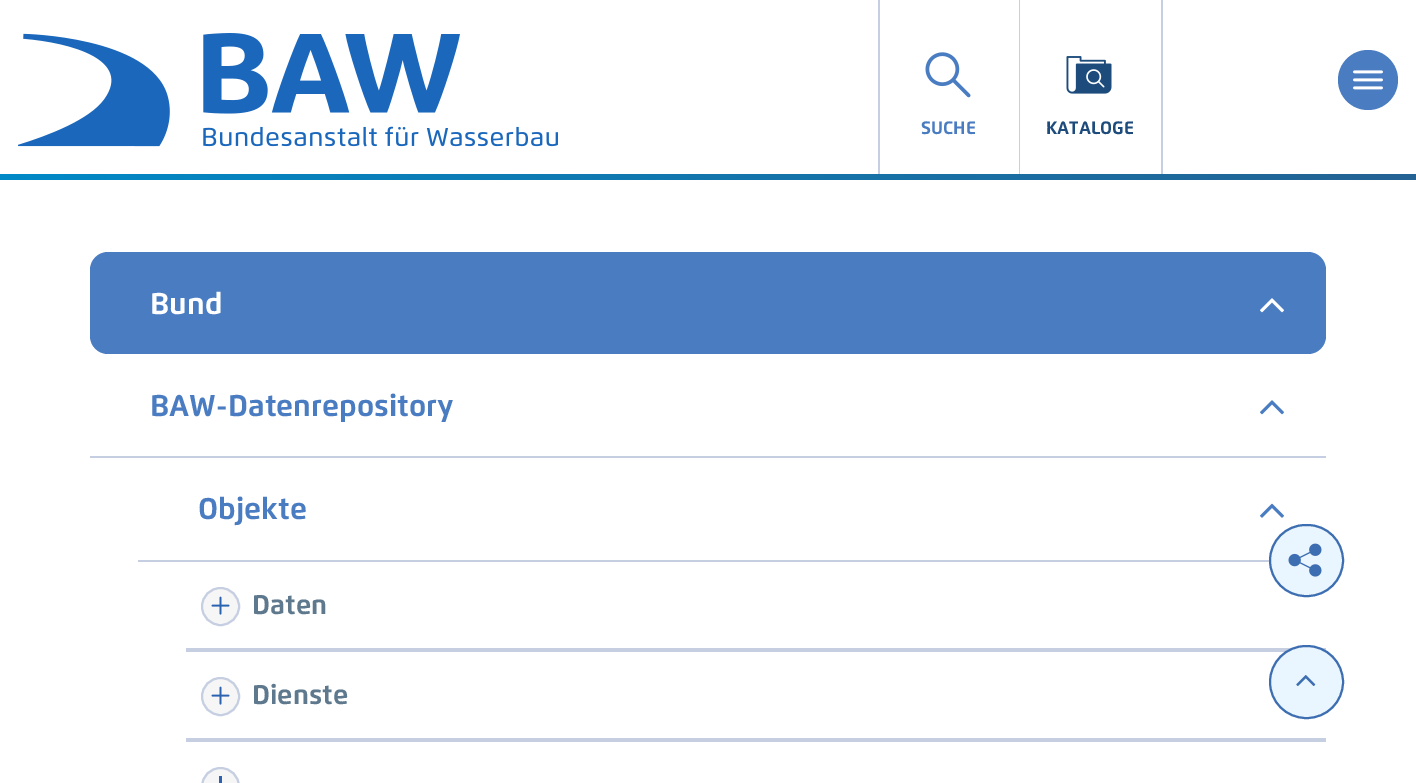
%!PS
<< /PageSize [1416 783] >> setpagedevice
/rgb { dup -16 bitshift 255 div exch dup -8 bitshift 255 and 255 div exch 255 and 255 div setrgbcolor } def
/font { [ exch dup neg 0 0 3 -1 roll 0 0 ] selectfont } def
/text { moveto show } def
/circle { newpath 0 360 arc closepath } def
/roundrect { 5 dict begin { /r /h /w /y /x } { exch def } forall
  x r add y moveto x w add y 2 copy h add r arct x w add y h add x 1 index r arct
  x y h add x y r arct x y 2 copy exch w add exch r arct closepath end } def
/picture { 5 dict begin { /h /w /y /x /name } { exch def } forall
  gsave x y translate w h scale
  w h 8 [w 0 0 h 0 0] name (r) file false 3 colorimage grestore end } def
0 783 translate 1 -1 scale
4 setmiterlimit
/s1 { /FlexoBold-Bold 18 font 16#4A7CC1 rgb } def
/s2 { /FlexoBold-Bold 18 font 16#1D4B7B rgb } def
/s3 { /FlexoBold-Bold 30 font 16#FFFFFF rgb } def
/s4 { /FlexoBold-Bold 30 font 16#4A7CC1 rgb } def
/s5 { /FlexoBold-Bold 27 font 16#5E788D rgb } def
16#FFFFFF rgb
0 0 1416 783 rectfill
(pic1.raw) 0 174 1416 6 picture
(pic2.raw) 18 33 540 114 picture
16#4A7CC1 rgb
1368 80 30 circle fill
(pic3.raw) 1353 70 30 20 picture
16#C6CFE2 rgb
1019 0 1 174 rectfill
878 0 2 174 rectfill
(pic4.raw) 925 52 46 46 picture
s1
(SUCHE) 921 134 text
16#C6CFE2 rgb
1161 0 2 174 rectfill
(pic5.raw) 1066 56 46 38 picture
s2
(KATALOGE) 1046 134 text
16#4A7CC1 rgb
90 252 1236 102 18 roundrect fill
s3
(Bund) 150 314 text
(pic6.raw) 1260 298 24 15 picture
16#C6CFE2 rgb
90 456 1236 2 rectfill
s4
(BAW-Datenrepository) 150 416 text
(pic7.raw) 1260 400 24 15 picture
16#C6CFE2 rgb
138 560 1132 2 rectfill
s4
(Objekte) 198 519 text
(pic8.raw) 1260 503 24 15 picture
16#C6CFE2 rgb
186 648 1140 4 rectfill
16#F6F6F6 rgb
220.5 606.5 18.5 circle gsave fill grestore
16#C6CFE2 rgb
2 setlinewidth
stroke
(pic9.raw) 211 596 19 19 picture
s5
(Daten) 252 614 text
16#C6CFE2 rgb
186 738 1140 4 rectfill
16#F6F6F6 rgb
220.5 696.5 18.5 circle gsave fill grestore
16#C6CFE2 rgb
stroke
(pic9.raw) 211 686 19 19 picture
s5
(Dienste) 252 704 text
16#F6F6F6 rgb
202 768 37 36 18.5 roundrect gsave fill grestore
16#C6CFE2 rgb
stroke
16#2C63B1 rgb
219 776 3 7 rectfill
16#EAF6FF rgb
1270 525 73 71 35.5 roundrect gsave fill grestore
16#3D6EB1 rgb
stroke
(pic10.raw) 1288 543 34 34 picture
16#EAF6FF rgb
1270 646 73 72 36 roundrect gsave fill grestore
16#3D6EB1 rgb
stroke
(pic11.raw) 1296 675 20 12 picture
showpage
